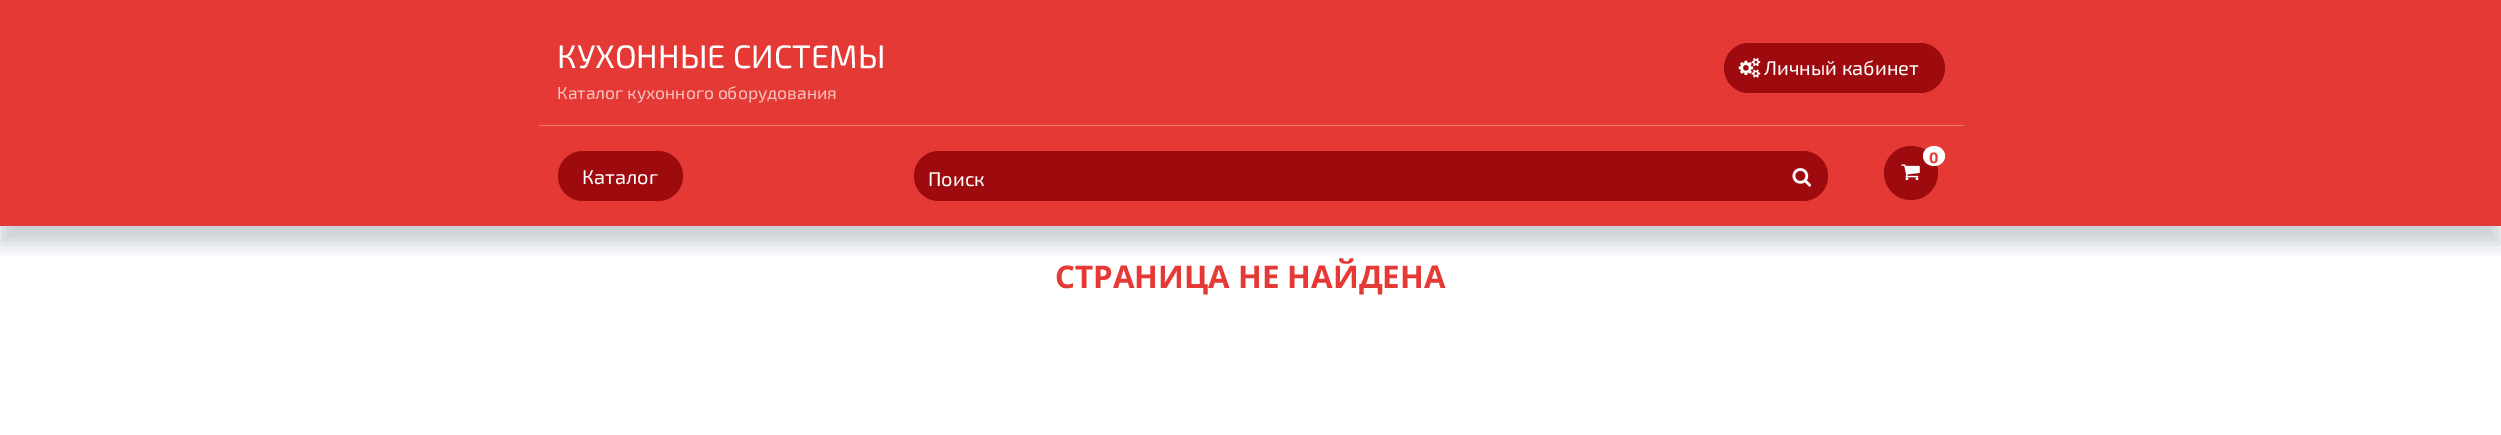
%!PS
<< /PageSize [2501 435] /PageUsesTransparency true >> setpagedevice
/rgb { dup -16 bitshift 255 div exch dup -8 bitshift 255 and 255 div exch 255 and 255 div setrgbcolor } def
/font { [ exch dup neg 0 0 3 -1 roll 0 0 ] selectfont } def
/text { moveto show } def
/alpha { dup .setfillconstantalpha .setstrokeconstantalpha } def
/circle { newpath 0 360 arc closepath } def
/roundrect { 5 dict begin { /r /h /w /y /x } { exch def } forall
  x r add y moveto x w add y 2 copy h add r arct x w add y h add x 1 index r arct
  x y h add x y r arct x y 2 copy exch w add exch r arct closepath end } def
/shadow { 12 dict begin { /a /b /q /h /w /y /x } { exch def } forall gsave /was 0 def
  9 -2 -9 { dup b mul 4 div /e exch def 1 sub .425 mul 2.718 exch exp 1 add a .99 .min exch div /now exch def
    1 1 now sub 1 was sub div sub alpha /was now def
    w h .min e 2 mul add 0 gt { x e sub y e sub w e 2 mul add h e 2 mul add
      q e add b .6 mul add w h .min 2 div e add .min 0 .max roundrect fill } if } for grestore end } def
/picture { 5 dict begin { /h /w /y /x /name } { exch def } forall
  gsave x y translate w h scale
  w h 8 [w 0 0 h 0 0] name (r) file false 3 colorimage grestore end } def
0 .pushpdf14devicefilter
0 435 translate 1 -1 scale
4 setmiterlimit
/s1 { /Exo2-Regular 32.5 font 16#FFFFFF rgb } def
/s2 { /Exo2-Regular 17.5 font 16#F7C4C2 rgb } def
/s3 { /Exo2-Regular 20 font 16#FFFFFF rgb } def
/s4 { /Exo2-Bold 15 font 16#E53935 rgb } def
/s5 { /OpenSans-Bold 31.25 font 16#E53935 rgb } def
16#FFFFFF rgb
0 0 2501 435 rectfill
16#E53935 rgb
0 0 2501 226 rectfill
16#ED7572 rgb
539 125 1425 1 rectfill
s1
(КУХОННЫЕ СИСТЕМЫ) 557 68 text
s2
(Каталог кухонного оборудования) 557 99 text
16#9E0B0F rgb
1724 43 221 50 25 roundrect fill
(pic1.raw) 1738 58 23 20 picture
s3
(Личный кабинет) 1764 75 text
gsave
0 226 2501 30 rectclip
16#20364A rgb
0 144 2501 100 0 9 0.23 shadow
grestore
16#9E0B0F rgb
1911 173 27 circle fill
(pic2.raw) 1901 164 19 17 picture
16#FFFFFF rgb
1934 146 moveto 1940 146 1945 150.5 1945 156 curveto 1945 161.5 1940 166 1934 166 curveto 1928 166 1923 161.5 1923 156 curveto 1923 150.5 1928 146 1934 146 curveto closepath fill
s4
(0) 1929 163 text
16#9E0B0F rgb
558 151 125 50 25 roundrect fill
s3
(Каталог) 582 184 text
16#9E0B0F rgb
914 151 914 50 25 roundrect fill
s3
(Поиск) 928 186 text
(pic3.raw) 1792 168 20 19 picture
s5
(СТРАНИЦА НЕ НАЙДЕНА) 1055 288 text
.poppdf14devicefilter showpage
